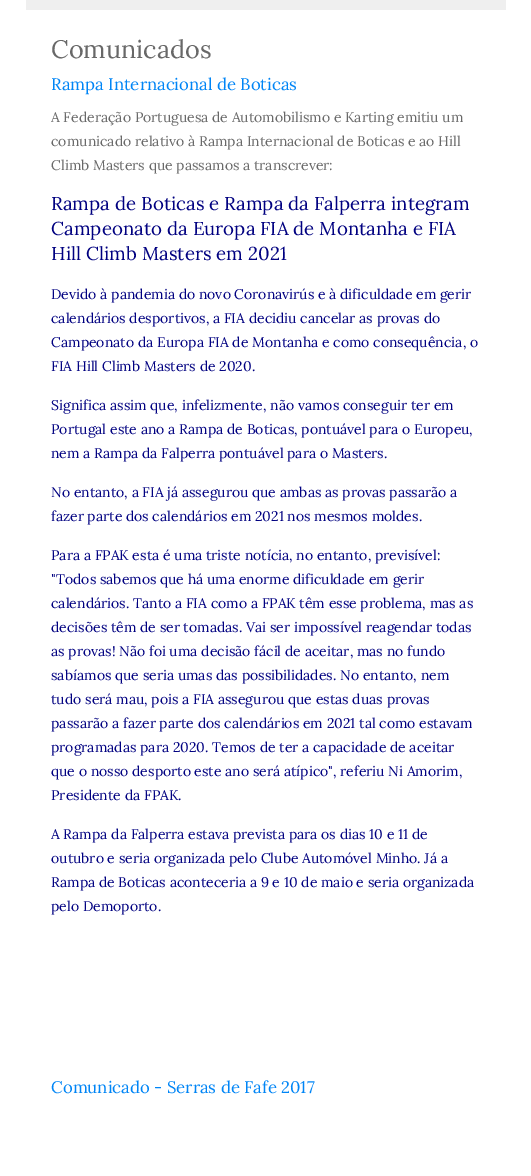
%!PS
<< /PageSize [531 1176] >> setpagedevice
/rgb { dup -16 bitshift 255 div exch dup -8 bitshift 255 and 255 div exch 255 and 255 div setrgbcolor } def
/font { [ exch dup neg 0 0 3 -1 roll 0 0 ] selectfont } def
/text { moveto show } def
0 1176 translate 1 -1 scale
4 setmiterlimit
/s1 { /Lora-Regular 25.25 font 16#686868 rgb } def
/s2 { /Lora-Regular 16.75 font 16#0085F6 rgb } def
/s3 { /Lora-Regular 14 font 16#686868 rgb } def
/s4 { /Lora-Regular 18.7 font 16#000080 rgb } def
/s5 { /Lora-Regular 14 font 16#000080 rgb } def
16#FFFFFF rgb
0 0 531 1176 rectfill
16#EFEFEF rgb
26 0 480 10 rectfill
s1
(Comunicados) 51 58 text
s2
(Rampa Internacional de Boticas) 51 90 text
s3
(A Federação Portuguesa de Automobilismo e Karting emitiu um) 51 122 text
(comunicado relativo à Rampa Internacional de Boticas e ao Hill) 51 146 text
(Climb Masters que passamos a transcrever:) 51 170 text
s4
(Rampa de Boticas e Rampa da Falperra integram) 51 210 text
(Campeonato da Europa FIA de Montanha e FIA) 51 235 text
(Hill Climb Masters em 2021) 51 260 text
s5
(Devido à pandemia do novo Coronavirús e à dificuldade em gerir) 51 299 text
(calendários desportivos, a FIA decidiu cancelar as provas do) 51 323 text
(Campeonato da Europa FIA de Montanha e como consequência, o) 51 347 text
(FIA Hill Climb Masters de 2020.) 51 371 text
(Significa assim que, infelizmente, não vamos conseguir ter em) 51 410 text
(Portugal este ano a Rampa de Boticas, pontuável para o Europeu,) 51 434 text
(nem a Rampa da Falperra pontuável para o Masters.) 51 458 text
(No entanto, a FIA já assegurou que ambas as provas passarão a) 51 497 text
(fazer parte dos calendários em 2021 nos mesmos moldes.) 51 521 text
(Para a FPAK esta é uma triste notícia, no entanto, previsível:) 51 560 text
("Todos sabemos que há uma enorme dificuldade em gerir) 51 584 text
(calendários. Tanto a FIA como a FPAK têm esse problema, mas as) 51 608 text
(decisões têm de ser tomadas. Vai ser impossível reagendar todas) 51 632 text
(as provas! Não foi uma decisão fácil de aceitar, mas no fundo) 51 656 text
(sabíamos que seria umas das possibilidades. No entanto, nem) 51 680 text
(tudo será mau, pois a FIA assegurou que estas duas provas) 51 704 text
(passarão a fazer parte dos calendários em 2021 tal como estavam) 51 728 text
(programadas para 2020. Temos de ter a capacidade de aceitar) 51 752 text
(que o nosso desporto este ano será atípico", referiu Ni Amorim,) 51 776 text
(Presidente da FPAK.) 51 800 text
(A Rampa da Falperra estava prevista para os dias 10 e 11 de) 51 839 text
(outubro e seria organizada pelo Clube Automóvel Minho. Já a) 51 863 text
(Rampa de Boticas aconteceria a 9 e 10 de maio e seria organizada) 51 887 text
(pelo Demoporto.) 51 911 text
s2
(Comunicado - Serras de Fafe 2017) 51 1093 text
showpage
